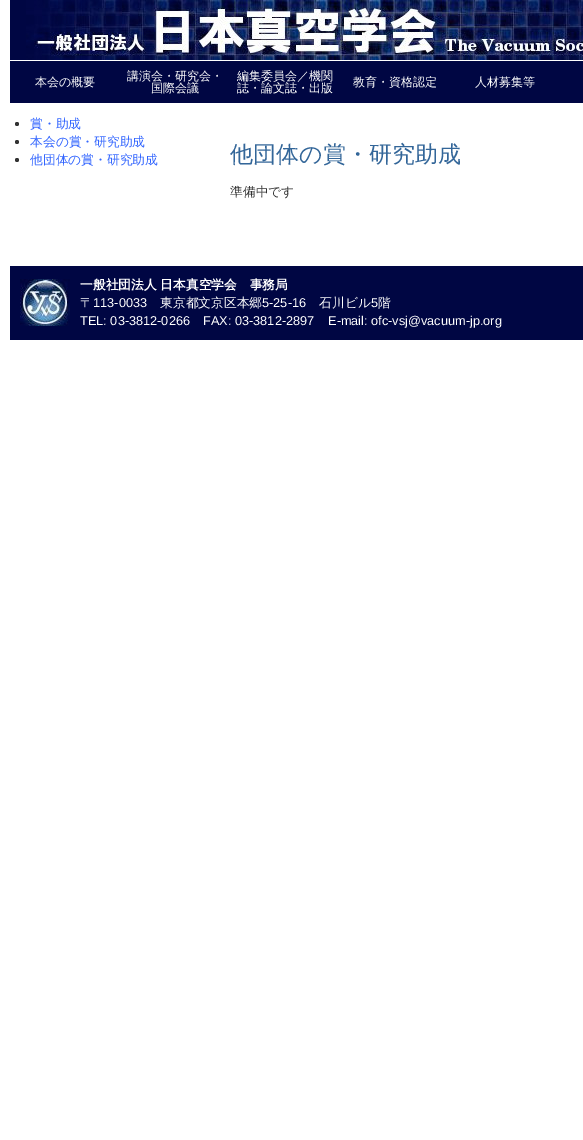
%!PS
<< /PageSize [583 1140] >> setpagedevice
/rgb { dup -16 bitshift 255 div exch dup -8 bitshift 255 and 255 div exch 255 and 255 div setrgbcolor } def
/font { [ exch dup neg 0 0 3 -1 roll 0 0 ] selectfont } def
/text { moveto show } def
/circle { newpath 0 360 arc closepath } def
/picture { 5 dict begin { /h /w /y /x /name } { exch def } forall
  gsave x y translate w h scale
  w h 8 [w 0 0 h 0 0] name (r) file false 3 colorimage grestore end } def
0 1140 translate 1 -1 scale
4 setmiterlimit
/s1 { /WenQuanYiZenHei-Medium 12 font 16#FFFFFF rgb } def
/s2 { /WenQuanYiZenHei-Medium 12.75 font 16#3366FF rgb } def
/s3 { /WenQuanYiZenHei-Medium 23 font 16#336699 rgb } def
/s4 { /WenQuanYiZenHei-Medium 12.75 font 16#333333 rgb } def
/s5 { /WenQuanYiZenHei-Bold 12.75 font 16#FFFFFF rgb } def
/s6 { /WenQuanYiZenHei-Medium 12.75 font 16#FFFFFF rgb } def
/s7 { /LiberationSans-Regular 12.75 font 16#FFFFFF rgb } def
16#FFFFFF rgb
0 0 583 1140 rectfill
16#000643 rgb
10 0 16 60 rectfill
(pic1.raw) 26 0 557 60 picture
10 61 573 42 rectfill
s1
(本会の概要) 35 86 text
(講演会・研究会・) 127 80 text
(国際会議) 151 92 text
(編集委員会／機関) 237 80 text
(誌・論文誌・出版) 237 92 text
(教育・資格認定) 353 86 text
(人材募集等) 475 86 text
16#333333 rgb
17 124 2 circle fill
s2
(賞・助成) 30 128 text
16#333333 rgb
17 142 2 circle fill
s2
(本会の賞・研究助成) 30 146 text
16#333333 rgb
17 160 2 circle fill
s2
(他団体の賞・研究助成) 30 164 text
s3
(他団体の賞・研究助成) 230 162 text
s4
(準備中です) 230 196 text
16#000643 rgb
10 266 573 74 rectfill
(pic2.raw) 20 279 50 47 picture
s5
(一般社団法人 日本真空学会　事務局) 80 289 text
s6
(〒) 80 307 text
s7
(113-0033) 93 307 text
s6
(東京都文京区本郷) 160 307 text
s7
(5-25-16) 262 307 text
s6
(石川ビル) 319 307 text
s7
(5) 371 307 text
s6
(階) 378 307 text
s7
(TEL: 03-3812-0266) 80 325 text
(FAX: 03-3812-2897) 203 325 text
(E-mail: ofc-vsj@vacuum-jp.org) 328 325 text
showpage
